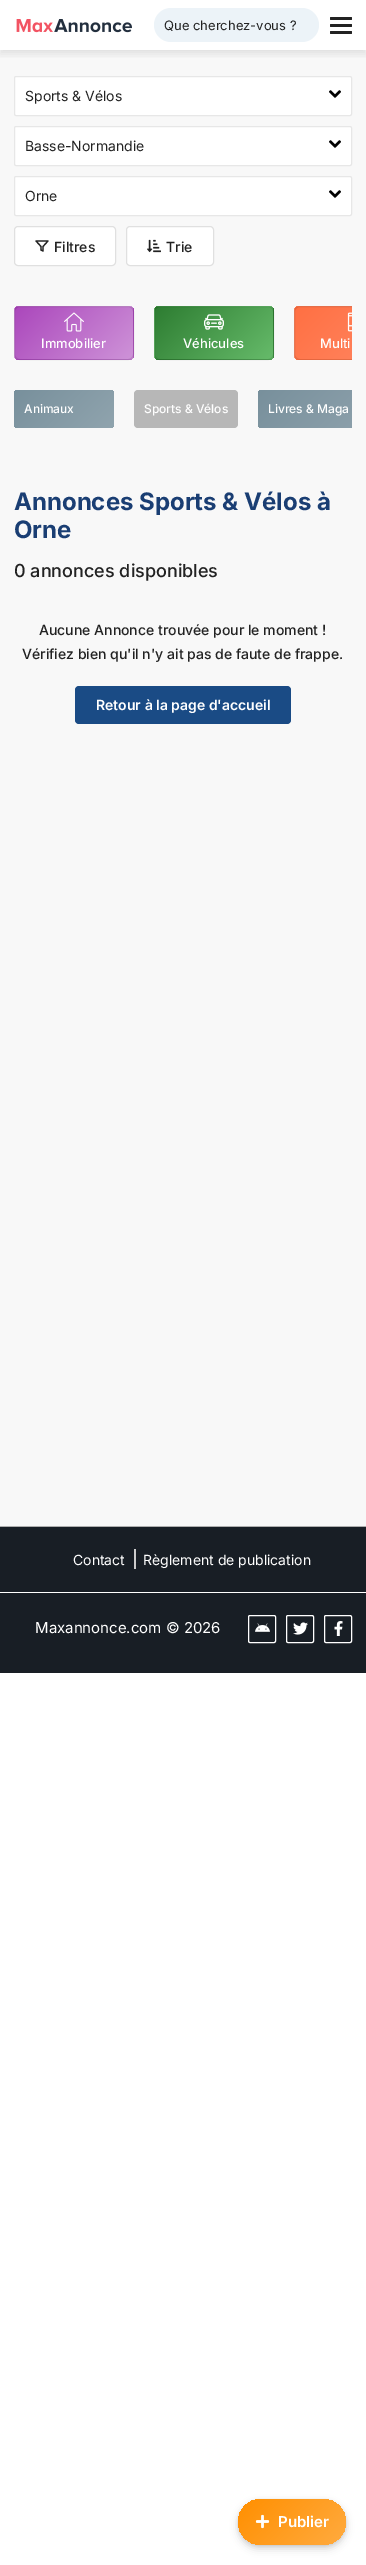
%!PS
<< /PageSize [366 2565] /PageUsesTransparency true >> setpagedevice
/rgb { dup -16 bitshift 255 div exch dup -8 bitshift 255 and 255 div exch 255 and 255 div setrgbcolor } def
/font { [ exch dup neg 0 0 3 -1 roll 0 0 ] selectfont } def
/text { moveto show } def
/alpha { dup .setfillconstantalpha .setstrokeconstantalpha } def
/roundrect { 5 dict begin { /r /h /w /y /x } { exch def } forall
  x r add y moveto x w add y 2 copy h add r arct x w add y h add x 1 index r arct
  x y h add x y r arct x y 2 copy exch w add exch r arct closepath end } def
/shadow { 12 dict begin { /a /b /q /h /w /y /x } { exch def } forall gsave /was 0 def
  9 -2 -9 { dup b mul 4 div /e exch def 1 sub .425 mul 2.718 exch exp 1 add a .99 .min exch div /now exch def
    1 1 now sub 1 was sub div sub alpha /was now def
    w h .min e 2 mul add 0 gt { x e sub y e sub w e 2 mul add h e 2 mul add
      q e add b .6 mul add w h .min 2 div e add .min 0 .max roundrect fill } if } for grestore end } def
/picture { 5 dict begin { /h /w /y /x /name } { exch def } forall
  gsave x y translate w h scale
  w h 8 [w 0 0 h 0 0] name (r) file false 3 colorimage grestore end } def
0 .pushpdf14devicefilter
0 2565 translate 1 -1 scale
4 setmiterlimit
/s1 { /Inter-Regular 13 font 16#222222 rgb } def
/s2 { /Inter-Regular 14 font 16#222222 rgb } def
/s3 { /Inter-Medium 14 font 16#222222 rgb } def
/s4 { /Inter-Medium 13 font 16#FFFFFF rgb } def
/s5 { /Inter-Medium 12 font 16#FFFFFF rgb } def
/s6 { /Inter-Bold 24 font 16#1A3E73 rgb } def
/s7 { /Inter-Medium 18 font 16#222222 rgb } def
/s8 { /Inter-SemiBold 14 font 16#FFFFFF rgb } def
/s9 { /Inter-SemiBold 15 font 16#FFFFFF rgb } def
/s10 { /Inter-Regular 14 font 16#FFFFFF rgb } def
/s11 { /Inter-Regular 15 font 16#FFFFFF rgb } def
16#FFFFFF rgb
0 0 366 2565 rectfill
16#F8F8F8 rgb
0 50 366 1476 rectfill
gsave
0 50 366 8 rectclip
16#323232 rgb
0 4 366 50 0 4 0.12 shadow
grestore
(pic1.raw) 16 19 116 14 picture
16#ECF3F8 rgb
154 8 165 34 17 roundrect fill
s1
(Que cherchez-vous ?) 164 30 text
330 17 22 3 1 roundrect fill
330 24 22 3 1 roundrect fill
330 31 22 3 1 roundrect fill
16#FFFFFF rgb
14.5 76.5 337 39 1.5 roundrect gsave fill grestore
16#E7E7E7 rgb
stroke
s2
(Sports & Vélos) 25 101 text
(pic2.raw) 329 90 12 8 picture
16#FFFFFF rgb
14.5 126.5 337 39 1.5 roundrect gsave fill grestore
16#E7E7E7 rgb
stroke
s2
(Basse-Normandie) 25 151 text
(pic2.raw) 329 140 12 8 picture
16#FFFFFF rgb
14.5 176.5 337 39 1.5 roundrect gsave fill grestore
16#E7E7E7 rgb
stroke
s2
(Orne) 25 201 text
(pic2.raw) 329 190 12 8 picture
16#FFFFFF rgb
14.5 226.5 101 39 3.5 roundrect gsave fill grestore
16#E0E0E0 rgb
stroke
16#222222 rgb
1.2 setlinewidth
1 setlinecap
1 setlinejoin
48 241 moveto 36 241 lineto 41 246.5 lineto 41 250 lineto 43 251 lineto 43 246.5 lineto closepath stroke
s3
(Filtres) 54 252 text
16#FFFFFF rgb
126.5 226.5 87 39 3.5 roundrect gsave fill grestore
16#E0E0E0 rgb
1 setlinewidth
0 setlinecap
0 setlinejoin
stroke
(pic3.raw) 147 239 14 14 picture
s3
(Trie) 166 252 text
gsave
14 306 120 54 6 roundrect clip newpath
gsave 15 306 moveto 133 306 lineto 133 307 lineto 15 307 lineto closepath clip newpath
<< /ShadingType 2 /ColorSpace /DeviceRGB /Coords [31 239 117 324] /Extend [true true] /Function << /FunctionType 2 /Domain [0 1] /C0 [0.671 0.278 0.737] /C1 [0.808 0.576 0.847] /N 1 >> >> shfill grestore
gsave 14 307 moveto 15 307 lineto 15 359 lineto 14 359 lineto closepath clip newpath
<< /ShadingType 2 /ColorSpace /DeviceRGB /Coords [-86 291 -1.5 376] /Extend [true true] /Function << /FunctionType 2 /Domain [0 1] /C0 [0.671 0.278 0.737] /C1 [0.808 0.576 0.847] /N 1 >> >> shfill grestore
gsave 15 307 moveto 133 307 lineto 133 359 lineto 15 359 lineto closepath clip newpath
<< /ShadingType 2 /ColorSpace /DeviceRGB /Coords [31 291 117 376] /Extend [true true] /Function << /FunctionType 2 /Domain [0 1] /C0 [0.671 0.278 0.737] /C1 [0.808 0.576 0.847] /N 1 >> >> shfill grestore
gsave 133 307 moveto 134 307 lineto 134 359 lineto 133 359 lineto closepath clip newpath
<< /ShadingType 2 /ColorSpace /DeviceRGB /Coords [150 291 235 376] /Extend [true true] /Function << /FunctionType 2 /Domain [0 1] /C0 [0.671 0.278 0.737] /C1 [0.808 0.576 0.847] /N 1 >> >> shfill grestore
gsave 15 359 moveto 133 359 lineto 133 360 lineto 15 360 lineto closepath clip newpath
<< /ShadingType 2 /ColorSpace /DeviceRGB /Coords [31 343 117 428] /Extend [true true] /Function << /FunctionType 2 /Domain [0 1] /C0 [0.671 0.278 0.737] /C1 [0.808 0.576 0.847] /N 1 >> >> shfill grestore
grestore
0.1 alpha
16#000000 rgb
14.5 306.5 119 53 5.5 roundrect stroke
1 alpha
(pic4.raw) 64 312 20 20 picture
s4
(Immobilier) 41 348 text
gsave
154 306 120 54 6 roundrect clip newpath
gsave 155 306 moveto 273 306 lineto 273 307 lineto 155 307 lineto closepath clip newpath
<< /ShadingType 2 /ColorSpace /DeviceRGB /Coords [172 239 257 324] /Extend [true true] /Function << /FunctionType 2 /Domain [0 1] /C0 [0.18 0.49 0.196] /C1 [0.4 0.733 0.416] /N 1 >> >> shfill grestore
gsave 154 307 moveto 155 307 lineto 155 359 lineto 154 359 lineto closepath clip newpath
<< /ShadingType 2 /ColorSpace /DeviceRGB /Coords [53 291 139 376] /Extend [true true] /Function << /FunctionType 2 /Domain [0 1] /C0 [0.18 0.49 0.196] /C1 [0.4 0.733 0.416] /N 1 >> >> shfill grestore
gsave 155 307 moveto 273 307 lineto 273 359 lineto 155 359 lineto closepath clip newpath
<< /ShadingType 2 /ColorSpace /DeviceRGB /Coords [172 291 257 376] /Extend [true true] /Function << /FunctionType 2 /Domain [0 1] /C0 [0.18 0.49 0.196] /C1 [0.4 0.733 0.416] /N 1 >> >> shfill grestore
gsave 273 307 moveto 274 307 lineto 274 359 lineto 273 359 lineto closepath clip newpath
<< /ShadingType 2 /ColorSpace /DeviceRGB /Coords [290 291 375 376] /Extend [true true] /Function << /FunctionType 2 /Domain [0 1] /C0 [0.18 0.49 0.196] /C1 [0.4 0.733 0.416] /N 1 >> >> shfill grestore
gsave 155 359 moveto 273 359 lineto 273 360 lineto 155 360 lineto closepath clip newpath
<< /ShadingType 2 /ColorSpace /DeviceRGB /Coords [172 343 257 428] /Extend [true true] /Function << /FunctionType 2 /Domain [0 1] /C0 [0.18 0.49 0.196] /C1 [0.4 0.733 0.416] /N 1 >> >> shfill grestore
grestore
0.1 alpha
16#000000 rgb
154.5 306.5 119 53 5.5 roundrect stroke
1 alpha
(pic5.raw) 204 314 20 16 picture
s4
(Véhicules) 183 348 text
gsave
294 306 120 54 6 roundrect clip newpath
gsave 295 306 moveto 352 306 lineto 352 307 lineto 295 307 lineto closepath clip newpath
<< /ShadingType 2 /ColorSpace /DeviceRGB /Coords [312 239 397 324] /Extend [true true] /Function << /FunctionType 2 /Domain [0 1] /C0 [1 0.439 0.263] /C1 [1 0.541 0.396] /N 1 >> >> shfill grestore
gsave 294 307 moveto 295 307 lineto 295 359 lineto 294 359 lineto closepath clip newpath
<< /ShadingType 2 /ColorSpace /DeviceRGB /Coords [194 291 279 376] /Extend [true true] /Function << /FunctionType 2 /Domain [0 1] /C0 [1 0.439 0.263] /C1 [1 0.541 0.396] /N 1 >> >> shfill grestore
gsave 295 307 moveto 352 307 lineto 352 359 lineto 295 359 lineto closepath clip newpath
<< /ShadingType 2 /ColorSpace /DeviceRGB /Coords [312 291 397 376] /Extend [true true] /Function << /FunctionType 2 /Domain [0 1] /C0 [1 0.439 0.263] /C1 [1 0.541 0.396] /N 1 >> >> shfill grestore
gsave 295 359 moveto 352 359 lineto 352 360 lineto 295 360 lineto closepath clip newpath
<< /ShadingType 2 /ColorSpace /DeviceRGB /Coords [312 343 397 428] /Extend [true true] /Function << /FunctionType 2 /Domain [0 1] /C0 [1 0.439 0.263] /C1 [1 0.541 0.396] /N 1 >> >> shfill grestore
grestore
gsave
14 306 338 54 rectclip
0.1 alpha
16#000000 rgb
294.5 306.5 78 53 5.5 roundrect stroke
grestore
(pic6.raw) 347 312 5 20 picture
(Multi) 320 348 text
gsave 14 390 100 38 4 roundrect clip newpath
<< /ShadingType 2 /ColorSpace /DeviceRGB /Coords [30 375 99 444] /Extend [true true] /Function << /FunctionType 2 /Domain [0 1] /C0 [0.471 0.565 0.612] /C1 [0.565 0.643 0.682] /N 1 >> >> shfill grestore
s5
(Animaux) 24 413 text
16#B7B7B7 rgb
134 390 104 38 4 roundrect fill
s5
(Sports & Vélos) 144 413 text
gsave 262 390 moveto 352 390 lineto 352 428 lineto 262 428 lineto 260 428 258 426 258 424 curveto 258 394 lineto 258 392 260 390 262 390 curveto closepath clip newpath
<< /ShadingType 2 /ColorSpace /DeviceRGB /Coords [282 367 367 452] /Extend [true true] /Function << /FunctionType 2 /Domain [0 1] /C0 [0.471 0.565 0.612] /C1 [0.565 0.643 0.682] /N 1 >> >> shfill grestore
(Livres & Maga) 268 413 text
s6
(Annonces Sports & Vélos à) 14 510 text
(Orne) 14 538 text
s7
(0 annonces disponibles) 14 577 text
s3
(Aucune Annonce trouvée pour le moment !) 39 635 text
(Vérifiez bien qu'il n'y ait pas de faute de frappe.) 22 659 text
16#1A4B85 rgb
75 686 216 38 4 roundrect fill
s8
(Retour à la page d'accueil) 96 710 text
16#000000 rgb
238 2500 108 46 23 1.5 0.1 shadow
238 2503 108 46 23 4 0.15 shadow
gsave 238 2499 108 46 23 roundrect clip newpath
<< /ShadingType 2 /ColorSpace /DeviceRGB /Coords [254 2484 331 2561] /Extend [true true] /Function << /FunctionType 2 /Domain [0 1] /C0 [1 0.561 0] /C1 [1 0.671 0.251] /N 1 >> >> shfill grestore
(pic7.raw) 255 2514 15 15 picture
s9
(Publier) 278 2527 text
16#181E25 rgb
0 1527 366 146 rectfill
16#AEAEAE rgb
0 1526 366 1 rectfill
s10
(Contact) 73 1565 text
16#CCCCCC rgb
134 1549 2 20 rectfill
s10
(Règlement de publication) 143 1565 text
0 1592 366 1 rectfill
s11
(Maxannonce.com © 2026) 35 1633 text
248.5 1615.5 27 27 1.5 roundrect stroke
(pic8.raw) 255 1623 15 9 picture
286.5 1615.5 27 27 1.5 roundrect stroke
(pic9.raw) 293 1622 15 13 picture
324.5 1615.5 27 27 1.5 roundrect stroke
(pic10.raw) 334 1621 9 15 picture
.poppdf14devicefilter showpage
